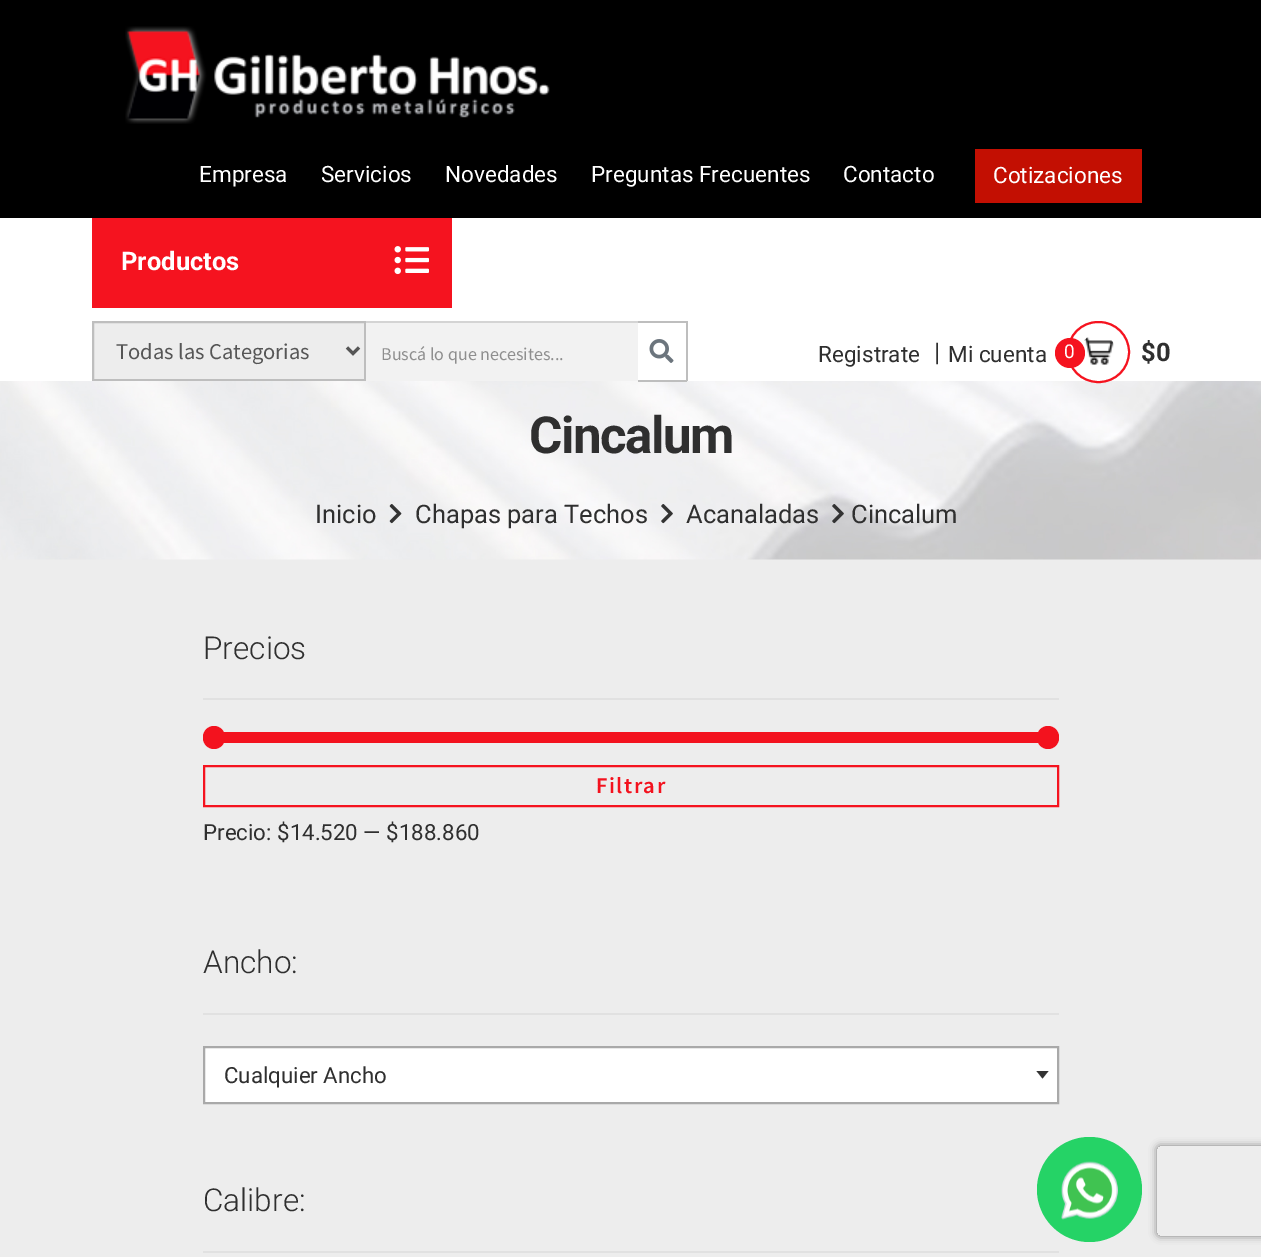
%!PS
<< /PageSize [1261 1257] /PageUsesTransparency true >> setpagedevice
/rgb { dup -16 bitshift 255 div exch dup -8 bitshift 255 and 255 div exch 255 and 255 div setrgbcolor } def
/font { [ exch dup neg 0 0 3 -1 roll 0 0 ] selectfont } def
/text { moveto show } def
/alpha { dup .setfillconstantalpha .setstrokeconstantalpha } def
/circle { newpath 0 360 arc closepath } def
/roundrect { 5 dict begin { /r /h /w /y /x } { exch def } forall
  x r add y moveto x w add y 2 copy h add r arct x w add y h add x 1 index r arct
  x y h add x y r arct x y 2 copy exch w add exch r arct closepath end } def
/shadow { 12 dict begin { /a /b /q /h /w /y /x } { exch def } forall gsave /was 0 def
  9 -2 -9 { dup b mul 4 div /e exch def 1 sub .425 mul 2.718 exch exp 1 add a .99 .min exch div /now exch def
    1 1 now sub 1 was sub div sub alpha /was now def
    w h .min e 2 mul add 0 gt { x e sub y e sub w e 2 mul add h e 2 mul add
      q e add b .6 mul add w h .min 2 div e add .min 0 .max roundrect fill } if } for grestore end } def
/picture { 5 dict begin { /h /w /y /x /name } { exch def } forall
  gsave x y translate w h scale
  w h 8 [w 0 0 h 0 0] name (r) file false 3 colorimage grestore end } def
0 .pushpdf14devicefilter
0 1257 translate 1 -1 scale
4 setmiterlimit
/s1 { /Roboto-Regular 22.5 font 16#FFFFFF rgb } def
/s2 { /Roboto-Bold 25.5 font 16#FFFFFF rgb } def
/s3 { /SourceSansPro-Regular 22.5 font 16#565656 rgb } def
/s4 { /SourceSansPro-Regular 18 font 16#8E8E8E rgb } def
/s5 { /Roboto-Regular 22.5 font 16#2F2F2F rgb } def
/s6 { /Roboto-Regular 25.5 font 16#2F2F2F rgb } def
/s7 { /Roboto-Regular 19 font 16#FFFFFF rgb } def
/s8 { /Roboto-Bold 25.5 font 16#2F2F2F rgb } def
/s9 { /Roboto-Light 31.5 font 16#2F2F2F rgb } def
/s10 { /Roboto-Regular 22.25 font 16#2F2F2F rgb } def
16#EDEDED rgb
0 0 1261 1257 rectfill
16#FFFFFF rgb
0 218 1261 163 rectfill
16#000000 rgb
0 0 1261 218 rectfill
(pic1.raw) 125 26 425 98 picture
s1
(Empresa) 199 182 text
(Servicios) 321 182 text
(Novedades) 445 182 text
(Preguntas Frecuentes) 591 182 text
(Contacto) 843 182 text
16#C30F02 rgb
975 149 167 54 rectfill
s1
(Cotizaciones) 993 183 text
16#F5131F rgb
92 218 360 90 rectfill
s2
(Productos) 121 270 text
(pic2.raw) 394 246 35 29 picture
16#EDEDED rgb
93 322 moveto 365 322 lineto 365 380 lineto 93 380 lineto closepath gsave fill grestore
16#BEBEBE rgb
2 setlinewidth
stroke
16#565656 rgb
3 setlinewidth
347 347.5 moveto 353 353.5 lineto 359 347.5 lineto stroke
s3
(Todas las Categorias) 116 359 text
16#F2F2F2 rgb
366 323 272 58 rectfill
16#D4D4D4 rgb
366 321 272 2 rectfill
s4
(Buscá lo que necesites...) 381 360 text
16#BEBEBE rgb
638 321 49 2 rectfill
686 321 2 60 rectfill
(pic5.raw) 0 381 1261 179 picture
638 380 49 2 rectfill
(pic3.raw) 649 339 25 24 picture
s5
(Registrate) 818 362 text
s6
(|) 934 361 text
s5
(Mi cuenta) 948 362 text
16#F5131F rgb
2 setlinewidth
1068 322 61 60 30 roundrect stroke
(pic4.raw) 1084 337 30 28 picture
1070 353 15 circle fill
s7
(0) 1064 358 text
s8
($0) 1141 361 text
/Roboto-Bold 51 font
529 453 moveto -1.5 0 (Cincalum) ashow
s6
(Inicio) 315 523 text
(pic6.raw) 389 504 13 20 picture
(Chapas para Techos) 415 523 text
(pic7.raw) 661 504 12 20 picture
(Acanaladas) 686 523 text
(pic8.raw) 832 504 12 20 picture
(Cincalum) 851 523 text
16#E1E1E1 rgb
203 698 856 2 rectfill
s9
(Precios) 203 659 text
16#F3121E rgb
203 732 856 11 5.5 roundrect fill
203 726 22 23 11 roundrect fill
1037 726 22 23 11 roundrect fill
16#F5131F rgb
204 766 854 40 rectstroke
/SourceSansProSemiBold-SemiBold 22.5 font
16#F3121E rgb
596 793 moveto 1.5 0 (Filtrar) ashow
s10
(Precio: $14.520 — $188.860) 203 840 text
16#E1E1E1 rgb
203 1013 856 2 rectfill
s9
(Ancho:) 203 973 text
16#FFFFFF rgb
204 1047 moveto 1058 1047 lineto 1058 1103 lineto 204 1103 lineto closepath gsave fill grestore
16#A9A9A9 rgb
stroke
s10
(Cualquier Ancho) 224 1083 text
16#333333 rgb
1036.5 1071 moveto 1048.5 1071 lineto 1042.5 1078.5 lineto closepath fill
16#E1E1E1 rgb
203 1251 856 2 rectfill
s9
(Calibre:) 203 1211 text
16#25D366 rgb
1089.5 1189.5 52.5 circle fill
(pic9.raw) 1061 1161 57 59 picture
gsave
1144 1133 moveto 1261 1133 lineto 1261 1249 lineto 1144 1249 lineto closepath 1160 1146 moveto 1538 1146 lineto 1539.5 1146 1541 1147.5 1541 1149 curveto 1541 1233 lineto 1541 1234.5 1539.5 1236 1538 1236 curveto 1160 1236 lineto 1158.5 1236 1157 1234.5 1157 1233 curveto 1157 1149 lineto 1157 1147.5 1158.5 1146 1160 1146 curveto closepath eoclip newpath
16#808080 rgb
1157 1146 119 90 3 4 1 shadow
grestore
.poppdf14devicefilter showpage
